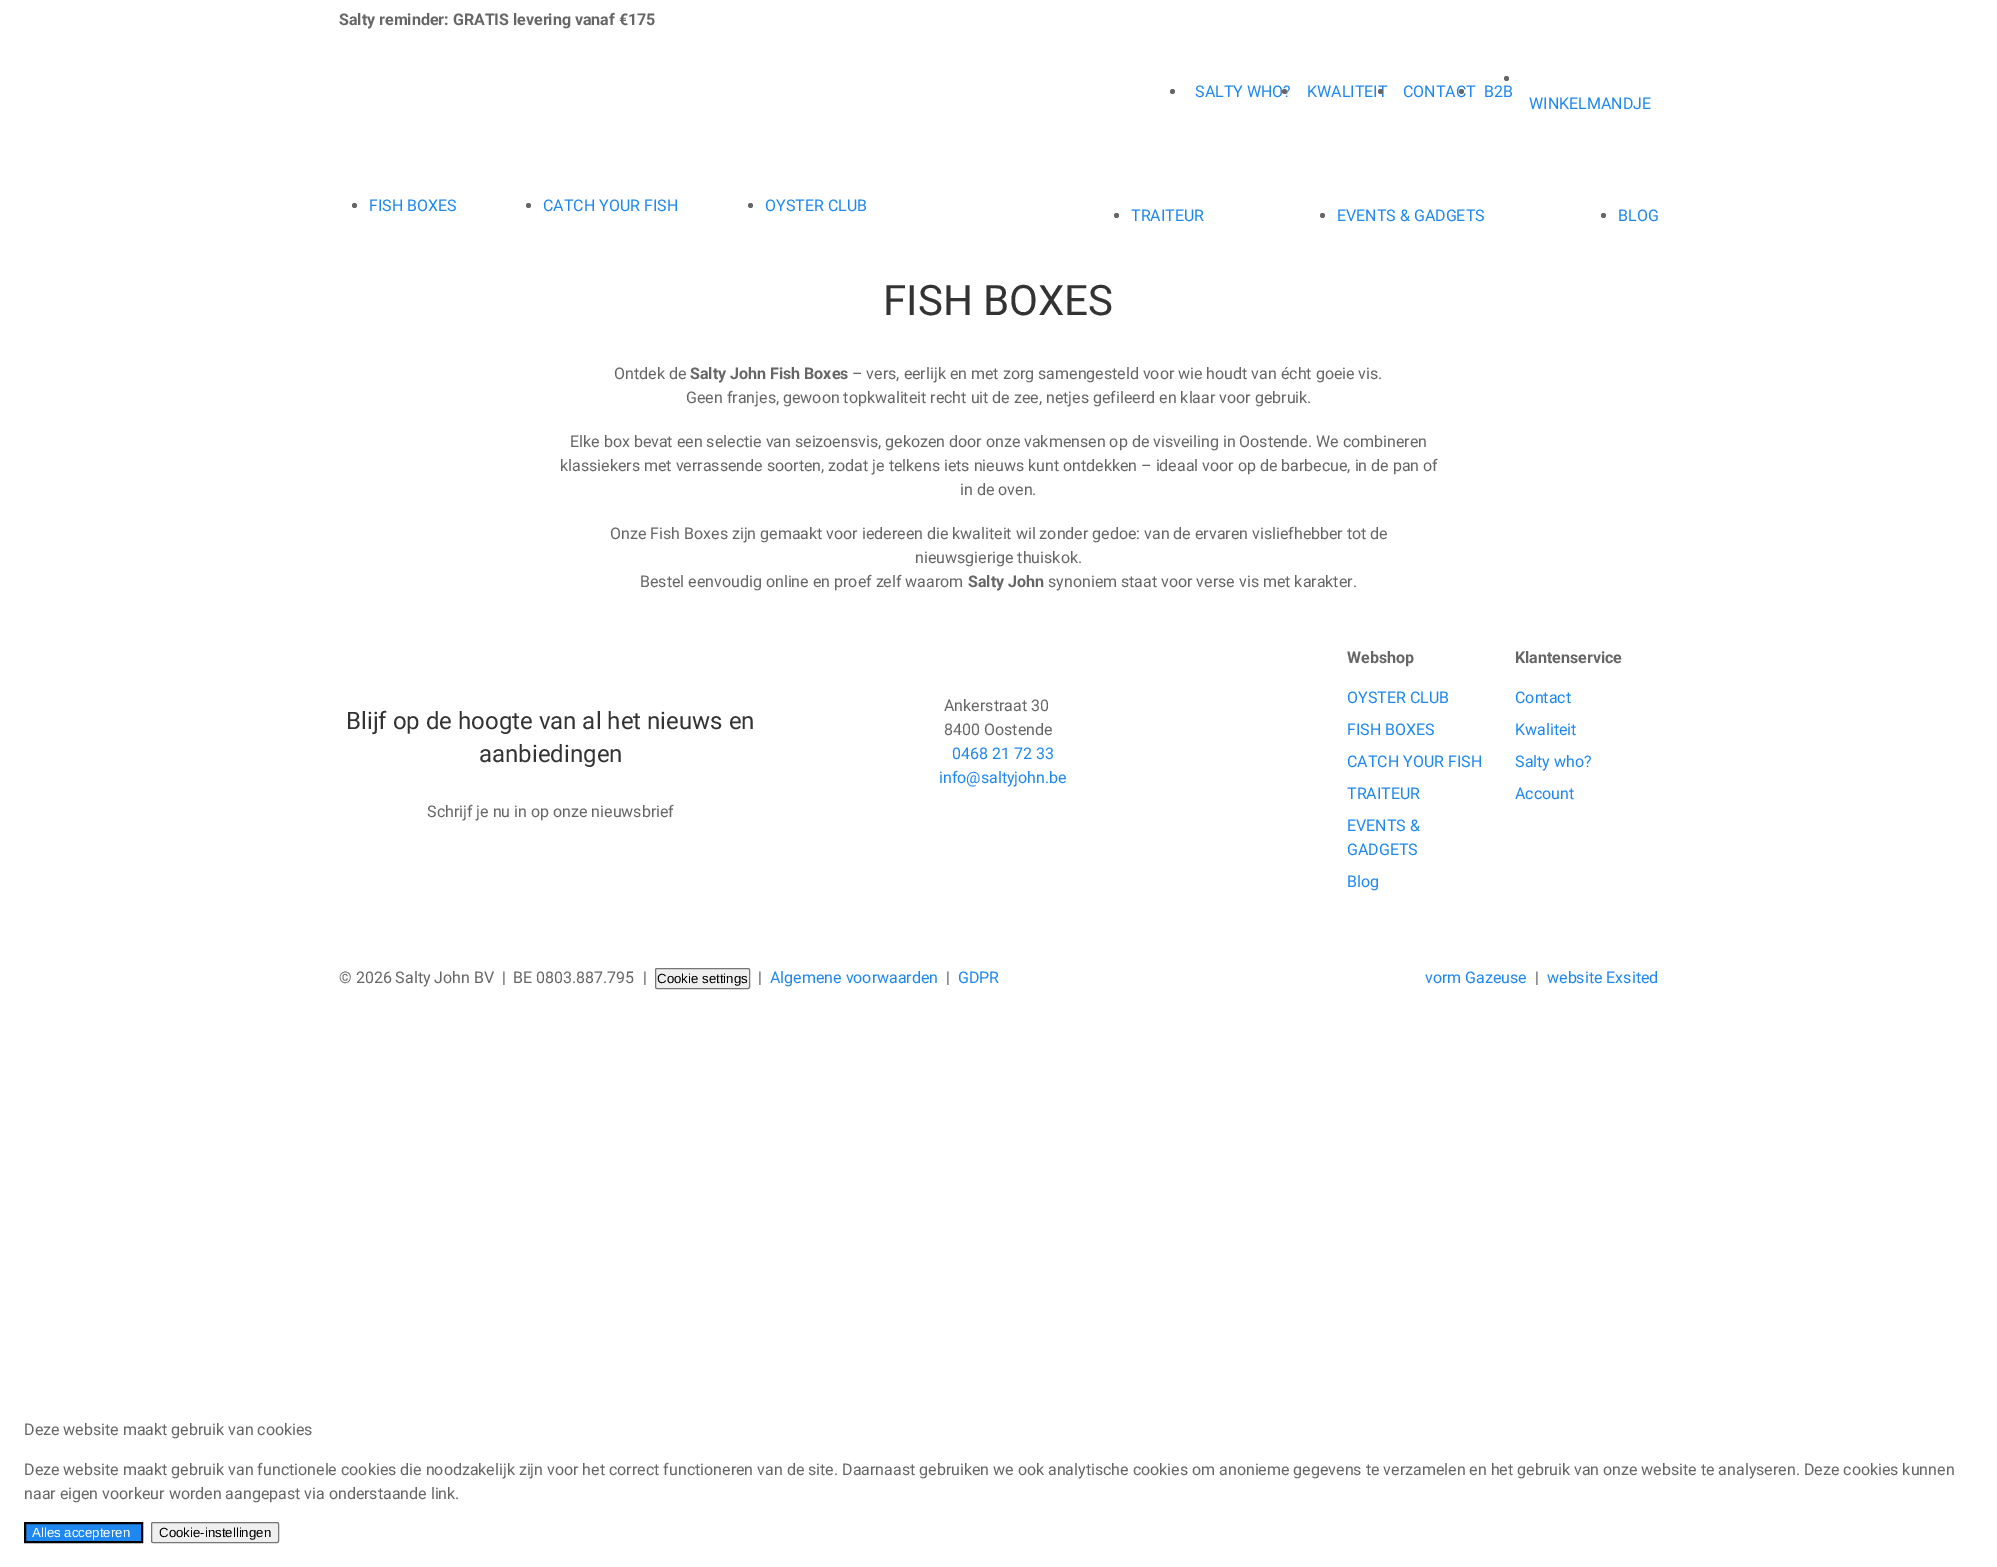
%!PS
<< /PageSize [1997 1567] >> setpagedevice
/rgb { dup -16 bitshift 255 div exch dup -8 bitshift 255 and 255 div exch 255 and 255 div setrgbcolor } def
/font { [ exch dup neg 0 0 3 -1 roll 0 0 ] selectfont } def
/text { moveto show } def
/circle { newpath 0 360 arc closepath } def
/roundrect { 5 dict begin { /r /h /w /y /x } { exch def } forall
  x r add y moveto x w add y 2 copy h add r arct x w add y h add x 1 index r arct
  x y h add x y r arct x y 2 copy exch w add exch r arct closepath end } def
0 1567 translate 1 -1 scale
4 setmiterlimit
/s1 { /Roboto-Bold 16 font 16#666666 rgb } def
/s2 { /Roboto-Regular 16 font 16#1E87F0 rgb } def
/s3 { /Roboto-Regular 42 font 16#333333 rgb } def
/s4 { /Roboto-Regular 16 font 16#666666 rgb } def
/s5 { /Roboto-Regular 24 font 16#333333 rgb } def
/s6 { /LiberationSans-Regular 13.25 font 16#000000 rgb } def
/s7 { /LiberationSans-Regular 13.25 font 16#FFFFFF rgb } def
16#FFFFFF rgb
0 0 1997 1567 rectfill
s1
(Salty reminder: GRATIS levering vanaf €175) 339 25 text
1172.5 91.5 2.5 circle fill
s2
(SALTY WHO?) 1195 97 text
16#666666 rgb
1284.5 91.5 2.5 circle fill
s2
(KWALITEIT) 1307 97 text
16#666666 rgb
1380.5 91.5 2.5 circle fill
s2
(CONTACT) 1403 97 text
16#666666 rgb
1461.5 91.5 2.5 circle fill
s2
(B2B) 1484 97 text
16#666666 rgb
1506.5 78.5 2.5 circle fill
s2
(WINKELMANDJE) 1529 109 text
16#666666 rgb
354.5 205.5 2.5 circle fill
s2
(FISH BOXES) 369 211 text
16#666666 rgb
528.5 205.5 2.5 circle fill
s2
(CATCH YOUR FISH) 543 211 text
16#666666 rgb
750.5 205.5 2.5 circle fill
s2
(OYSTER CLUB) 765 211 text
16#666666 rgb
1116.5 215.5 2.5 circle fill
s2
(TRAITEUR) 1131 221 text
16#666666 rgb
1322.5 215.5 2.5 circle fill
s2
(EVENTS & GADGETS) 1337 221 text
16#666666 rgb
1603.5 215.5 2.5 circle fill
s2
(BLOG) 1618 221 text
s3
(FISH BOXES) 883 315 text
s4
(Ontdek de) 614 379 text
s1
(Salty John Fish Boxes) 690 379 text
s4
(– vers, eerlijk en met zorg samengesteld voor wie houdt van écht goeie vis.) 852 379 text
(Geen franjes, gewoon topkwaliteit recht uit de zee, netjes gefileerd en klaar voor gebruik.) 686 403 text
(Elke box bevat een selectie van seizoensvis, gekozen door onze vakmensen op de visveiling in Oostende. We combineren) 570 447 text
(klassiekers met verrassende soorten, zodat je telkens iets nieuws kunt ontdekken – ideaal voor op de barbecue, in de pan of) 560 471 text
(in de oven.) 960 495 text
(Onze Fish Boxes zijn gemaakt voor iedereen die kwaliteit wil zonder gedoe: van de ervaren visliefhebber tot de) 610 539 text
(nieuwsgierige thuiskok.) 915 563 text
(Bestel eenvoudig online en proef zelf waarom) 640 587 text
s1
(Salty John) 968 587 text
s4
(synoniem staat voor verse vis met karakter.) 1048 587 text
s5
(Blijf op de hoogte van al het nieuws en) 346 729 text
(aanbiedingen) 479 762 text
s4
(Schrijf je nu in op onze nieuwsbrief) 427 817 text
(Ankerstraat 30) 944 711 text
(8400 Oostende) 944 735 text
s2
(0468 21 72 33) 952 759 text
(info@saltyjohn.be) 939 783 text
s1
(Webshop) 1347 663 text
s2
(OYSTER CLUB) 1347 703 text
(FISH BOXES) 1347 735 text
(CATCH YOUR FISH) 1347 767 text
(TRAITEUR) 1347 799 text
(EVENTS &) 1347 831 text
(GADGETS) 1347 855 text
(Blog) 1347 887 text
s1
(Klantenservice) 1515 663 text
s2
(Contact) 1515 703 text
(Kwaliteit) 1515 735 text
(Salty who?) 1515 767 text
(Account) 1515 799 text
s4
(© 2026 Salty John BV) 339 983 text
(|) 502 983 text
(BE 0803.887.795) 513 983 text
(|) 643 983 text
16#EFEFEF rgb
655.5 968.5 94 20 1.5 roundrect gsave fill grestore
16#767676 rgb
stroke
s6
(Cookie settings) 657 983 text
s4
(|) 758 983 text
s2
(Algemene voorwaarden) 770 983 text
s4
(|) 946 983 text
s2
(GDPR) 958 983 text
(vorm Gazeuse) 1425 983 text
s4
(|) 1535 983 text
s2
(website Exsited) 1547 983 text
s4
(Deze website maakt gebruik van cookies) 24 1435 text
(Deze website maakt gebruik van functionele cookies die noodzakelijk zijn voor het correct functioneren van de site. Daarnaast gebruiken we ook analytische cookies om anonieme gegevens te verzamelen en het gebruik van onze website te analyseren. Deze cookies kunnen) 24 1475 text
(naar eigen voorkeur worden aangepast via onderstaande link.) 24 1499 text
16#1E87F0 rgb
25 1523 moveto 142 1523 lineto 142 1542 lineto 25 1542 lineto closepath gsave fill grestore
16#000000 rgb
2 setlinewidth
stroke
s7
(Alles accepteren) 32 1537 text
16#EFEFEF rgb
151.5 1522.5 127 20 1.5 roundrect gsave fill grestore
16#767676 rgb
1 setlinewidth
stroke
s6
(Cookie-instellingen) 159 1537 text
showpage
